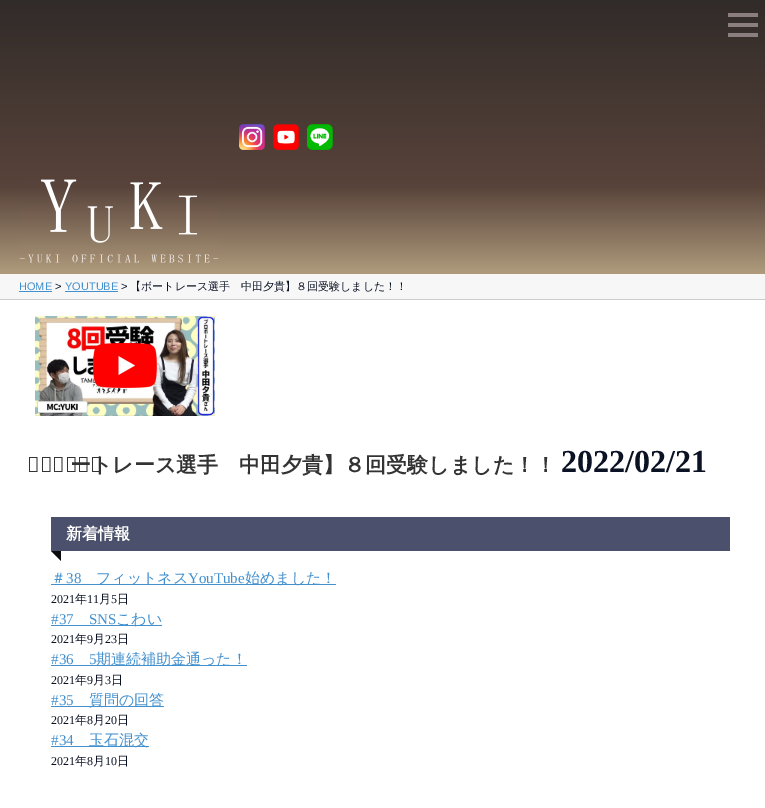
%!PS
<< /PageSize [765 808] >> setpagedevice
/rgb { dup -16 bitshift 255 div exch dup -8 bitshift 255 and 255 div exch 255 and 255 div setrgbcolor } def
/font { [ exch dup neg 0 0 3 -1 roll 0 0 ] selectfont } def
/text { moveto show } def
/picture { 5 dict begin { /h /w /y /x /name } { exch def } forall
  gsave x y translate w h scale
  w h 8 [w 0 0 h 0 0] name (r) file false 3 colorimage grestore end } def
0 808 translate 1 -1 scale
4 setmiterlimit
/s1 { /LiberationSans-Regular 11 font 16#4290CE rgb } def
/s2 { /LiberationSans-Regular 11 font 16#0B1224 rgb } def
/s3 { /WenQuanYiZenHei-Medium 11 font 16#0B1224 rgb } def
/s4 { /NotoSans-Thin 21 font 16#333333 rgb } def
/s5 { /WenQuanYiZenHei-Bold 21 font 16#333333 rgb } def
/s6 { /LiberationSerif-Bold 32 font 16#0B1224 rgb } def
/s7 { /WenQuanYiZenHei-Bold 16 font 16#FFFFFF rgb } def
/s8 { /WenQuanYiZenHei-Medium 15 font 16#4290CE rgb } def
/s9 { /LiberationSerif-Regular 15 font 16#4290CE rgb } def
/s10 { /LiberationSerif-Regular 12 font 16#0B1224 rgb } def
/s11 { /WenQuanYiZenHei-Medium 12 font 16#0B1224 rgb } def
16#FFFFFF rgb
0 0 765 808 rectfill
gsave 0 0 moveto 765 0 lineto 765 274 lineto 0 274 lineto closepath clip newpath
<< /ShadingType 2 /ColorSpace /DeviceRGB /Coords [383 0 383 274] /Extend [true true] /Function << /FunctionType 3 /Domain [0 1] /Functions [<< /FunctionType 2 /Domain [0 1] /C0 [0.192 0.169 0.161] /C1 [0.345 0.263 0.231] /N 1 >> << /FunctionType 2 /Domain [0 1] /C0 [0.345 0.263 0.231] /C1 [0.686 0.608 0.486] /N 1 >>] /Bounds [0.68] /Encode [0 1 0 1] >> >> shfill grestore
16#8A7E7E rgb
728 23 30 4 rectfill
728 13 30 4 rectfill
728 33 30 4 rectfill
(pic1.raw) 239 124 26 26 picture
(pic2.raw) 273 124 26 26 picture
(pic3.raw) 307 124 26 26 picture
(pic4.raw) 19 179 200 84 picture
16#F7F7F7 rgb
0 274 765 25 rectfill
16#CDCDCD rgb
0 299 765 1 rectfill
s1
(HOME) 19 290 text
19 291 33 1 rectfill
s2
(>) 55 290 text
s1
(YOUTUBE) 65 290 text
65 291 53 1 rectfill
s2
(>) 121 290 text
s3
(【ボートレース選手　中田夕貴】８回受験しました！！) 130 290 text
(pic5.raw) 35 316 180 100 picture
(pic6.raw) 93 343 64 45 picture
s4
(【ボ) 27 472 text
s5
(ートレース選手　中田夕貴】８回受験しました！！) 70 472 text
s6
(2022/02/21) 561 472 text
16#4B506D rgb
51 517 679 34 rectfill
s7
(新着情報) 66 539 text
16#0B0B0E rgb
51 551 moveto 61 551 lineto 61 561 lineto closepath fill
s8
(＃) 51 583 text
s9
(38) 66 583 text
51 584 285 1 rectfill
s8
(フィットネス) 96 583 text
s9
(YouTube) 188 583 text
s8
(始めました！) 245 583 text
s10
(2021) 51 603 text
s11
(年) 75 603 text
s10
(11) 87 603 text
s11
(月) 99 603 text
s10
(5) 111 603 text
s11
(日) 117 603 text
s9
(#37) 51 624 text
51 625 111 1 rectfill
(SNS) 89 624 text
s8
(こわい) 116 624 text
s10
(2021) 51 643 text
s11
(年) 75 643 text
s10
(9) 87 643 text
s11
(月) 93 643 text
s10
(23) 105 643 text
s11
(日) 117 643 text
s9
(#36) 51 664 text
51 665 196 1 rectfill
(5) 89 664 text
s8
(期連続補助金通った！) 96 664 text
s10
(2021) 51 684 text
s11
(年) 75 684 text
s10
(9) 87 684 text
s11
(月) 93 684 text
s10
(3) 105 684 text
s11
(日) 111 684 text
s9
(#35) 51 705 text
51 706 113 1 rectfill
s8
(質問の回答) 89 705 text
s10
(2021) 51 724 text
s11
(年) 75 724 text
s10
(8) 87 724 text
s11
(月) 93 724 text
s10
(20) 105 724 text
s11
(日) 117 724 text
s9
(#34) 51 745 text
51 746 98 1 rectfill
s8
(玉石混交) 89 745 text
s10
(2021) 51 765 text
s11
(年) 75 765 text
s10
(8) 87 765 text
s11
(月) 93 765 text
s10
(10) 105 765 text
s11
(日) 117 765 text
showpage
